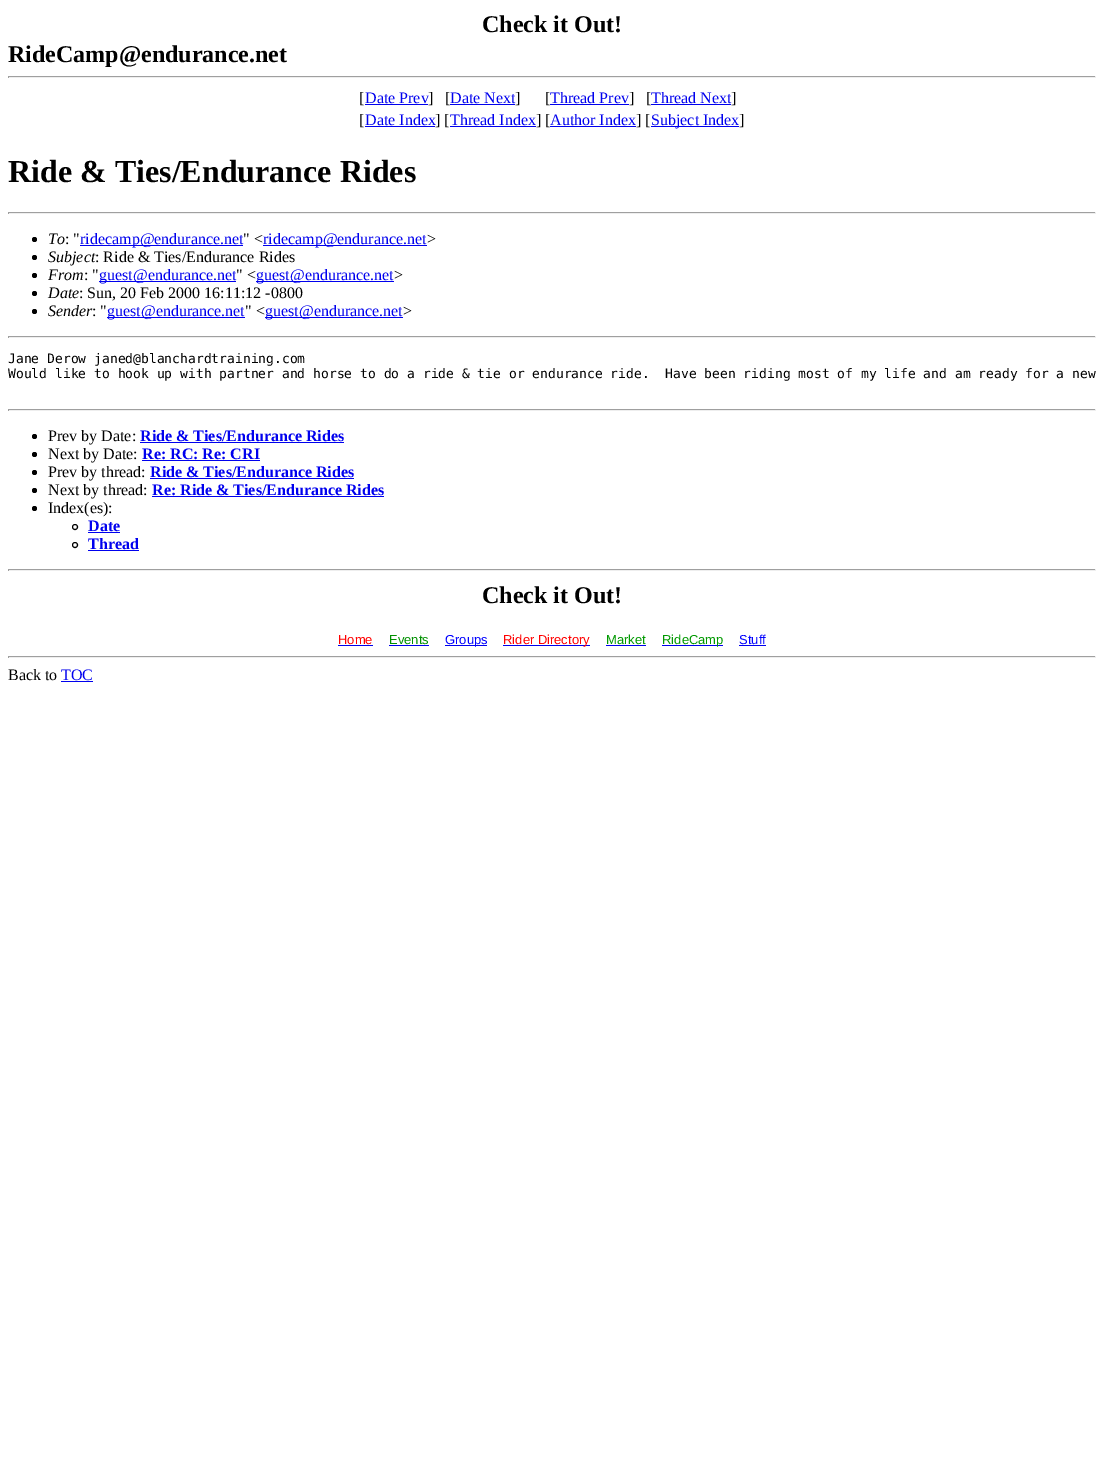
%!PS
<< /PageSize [1104 1480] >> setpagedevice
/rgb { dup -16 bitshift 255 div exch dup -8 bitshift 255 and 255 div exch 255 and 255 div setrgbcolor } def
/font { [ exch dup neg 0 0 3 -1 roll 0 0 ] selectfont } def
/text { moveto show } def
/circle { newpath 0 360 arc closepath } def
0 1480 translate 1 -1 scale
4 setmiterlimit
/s1 { /LiberationSerif-Bold 24 font 16#000000 rgb } def
/s2 { /LiberationSerif-Regular 16 font 16#000000 rgb } def
/s3 { /LiberationSerif-Regular 16 font 16#0000EE rgb } def
/s4 { /LiberationSerif-Bold 32 font 16#000000 rgb } def
/s5 { /LiberationSerif-Italic 16 font 16#000000 rgb } def
/s6 { /DejaVuSansMono-Regular 13 font 16#000000 rgb } def
/s7 { /LiberationSerif-Bold 16 font 16#0000EE rgb } def
/s8 { /LiberationSans-Regular 13 font 16#FF0000 rgb } def
/s9 { /LiberationSans-Regular 13 font 16#009000 rgb } def
/s10 { /LiberationSans-Regular 13 font 16#0000FF rgb } def
/s11 { /LiberationSans-Regular 13 font 16#009900 rgb } def
16#FFFFFF rgb
0 0 1104 1480 rectfill
s1
(Check it Out!) 482 32 text
(RideCamp@endurance.net) 8 62 text
16#9F9F9F rgb
8 76 1088 1 rectfill
16#EEEEEE rgb
1095 76 1 2 rectfill
8 77 1088 1 rectfill
16#9F9F9F rgb
8 76 1 2 rectfill
s2
([) 359 103 text
s3
(Date Prev) 365 103 text
365 104 63 1 rectfill
s2
(]) 428 103 text
([) 445 103 text
s3
(Date Next) 450 103 text
450 104 65 1 rectfill
s2
(]) 515 103 text
([) 545 103 text
s3
(Thread Prev) 550 103 text
550 104 79 1 rectfill
s2
(]) 629 103 text
([) 646 103 text
s3
(Thread Next) 651 103 text
651 104 80 1 rectfill
s2
(]) 731 103 text
([) 359 125 text
s3
(Date Index) 365 125 text
365 126 70 1 rectfill
s2
(] [) 435 125 text
s3
(Thread Index) 450 125 text
450 126 86 1 rectfill
s2
(] [) 536 125 text
s3
(Author Index) 550 125 text
550 126 86 1 rectfill
s2
(] [) 636 125 text
16#0000EE rgb
651 126 88 1 rectfill
(Subject Index) 651 125 text
s2
(]) 739 125 text
s4
(Ride & Ties/Endurance Rides) 8 182 text
16#9F9F9F rgb
8 212 1088 1 rectfill
16#EEEEEE rgb
1095 212 1 2 rectfill
8 213 1088 1 rectfill
16#9F9F9F rgb
8 212 1 2 rectfill
16#000000 rgb
34.5 239.5 2.5 circle fill
s5
(To) 48 244 text
s2
(: ") 65 244 text
16#0000EE rgb
80 245 163 1 rectfill
(ridecamp@endurance.net) 80 244 text
s2
(" <) 243 244 text
16#0000EE rgb
263 245 164 1 rectfill
(ridecamp@endurance.net) 263 244 text
s2
(>) 427 244 text
34.5 257.5 2.5 circle fill
s5
(Subject) 48 262 text
s2
(: Ride & Ties/Endurance Rides) 95 262 text
34.5 275.5 2.5 circle fill
s5
(From) 48 280 text
s2
(: ") 84 280 text
16#0000EE rgb
99 281 137 1 rectfill
(guest@endurance.net) 99 280 text
s2
(" <) 236 280 text
16#0000EE rgb
256 281 138 1 rectfill
(guest@endurance.net) 256 280 text
s2
(>) 394 280 text
34.5 293.5 2.5 circle fill
s5
(Date) 48 298 text
s2
(: Sun, 20 Feb 2000 16:11:12 -0800) 79 298 text
34.5 311.5 2.5 circle fill
s5
(Sender) 48 316 text
s2
(: ") 92 316 text
16#0000EE rgb
107 317 138 1 rectfill
(guest@endurance.net) 107 316 text
s2
(" <) 245 316 text
16#0000EE rgb
265 317 138 1 rectfill
(guest@endurance.net) 265 316 text
s2
(>) 403 316 text
16#9F9F9F rgb
8 336 1088 1 rectfill
16#EEEEEE rgb
1095 336 1 2 rectfill
8 337 1088 1 rectfill
16#9F9F9F rgb
8 336 1 2 rectfill
s6
(Jane Derow janed@blanchardtraining.com) 8 363 text
(Would like to hook up with partner and horse to do a ride & tie or endurance ride.  Have been riding most of my life and am ready for a new) 8 378 text
16#9F9F9F rgb
8 409 1088 1 rectfill
16#EEEEEE rgb
1095 409 1 2 rectfill
8 410 1088 1 rectfill
16#9F9F9F rgb
8 409 1 2 rectfill
16#000000 rgb
34.5 436.5 2.5 circle fill
s2
(Prev by Date:) 48 441 text
s7
(Ride & Ties/Endurance Rides) 140 441 text
140 442 204 1 rectfill
16#000000 rgb
34.5 454.5 2.5 circle fill
s2
(Next by Date:) 48 459 text
s7
(Re: RC: Re: CRI) 142 459 text
142 460 118 1 rectfill
16#000000 rgb
34.5 472.5 2.5 circle fill
s2
(Prev by thread:) 48 477 text
s7
(Ride & Ties/Endurance Rides) 150 477 text
150 478 204 1 rectfill
16#000000 rgb
34.5 490.5 2.5 circle fill
s2
(Next by thread:) 48 495 text
s7
(Re: Ride & Ties/Endurance Rides) 152 495 text
152 496 232 1 rectfill
16#000000 rgb
34.5 508.5 2.5 circle fill
s2
(Index\(es\):) 48 513 text
75 527 2.5 circle stroke
s7
(Date) 88 531 text
88 532 32 1 rectfill
16#000000 rgb
75 545 2.5 circle stroke
s7
(Thread) 88 549 text
88 550 51 1 rectfill
16#9F9F9F rgb
8 569 1088 1 rectfill
16#EEEEEE rgb
1095 569 1 2 rectfill
8 570 1088 1 rectfill
16#9F9F9F rgb
8 569 1 2 rectfill
s1
(Check it Out!) 482 603 text
s8
(Home) 338 644 text
16#0000EE rgb
338 645 35 1 rectfill
s9
(Events) 389 644 text
16#0000EE rgb
389 645 40 1 rectfill
445 645 42 1 rectfill
s10
(Groups) 445 644 text
16#0000EE rgb
503 645 87 1 rectfill
s8
(Rider Directory) 503 644 text
s11
(Market) 606 644 text
16#0000EE rgb
606 645 40 1 rectfill
662 645 61 1 rectfill
s11
(RideCamp) 662 644 text
s10
(Stuff) 739 644 text
16#0000EE rgb
739 645 27 1 rectfill
16#9F9F9F rgb
8 656 1088 1 rectfill
16#EEEEEE rgb
1095 656 1 2 rectfill
8 657 1088 1 rectfill
16#9F9F9F rgb
8 656 1 2 rectfill
s2
(Back to) 8 680 text
s3
(TOC) 61 680 text
61 681 32 1 rectfill
showpage
